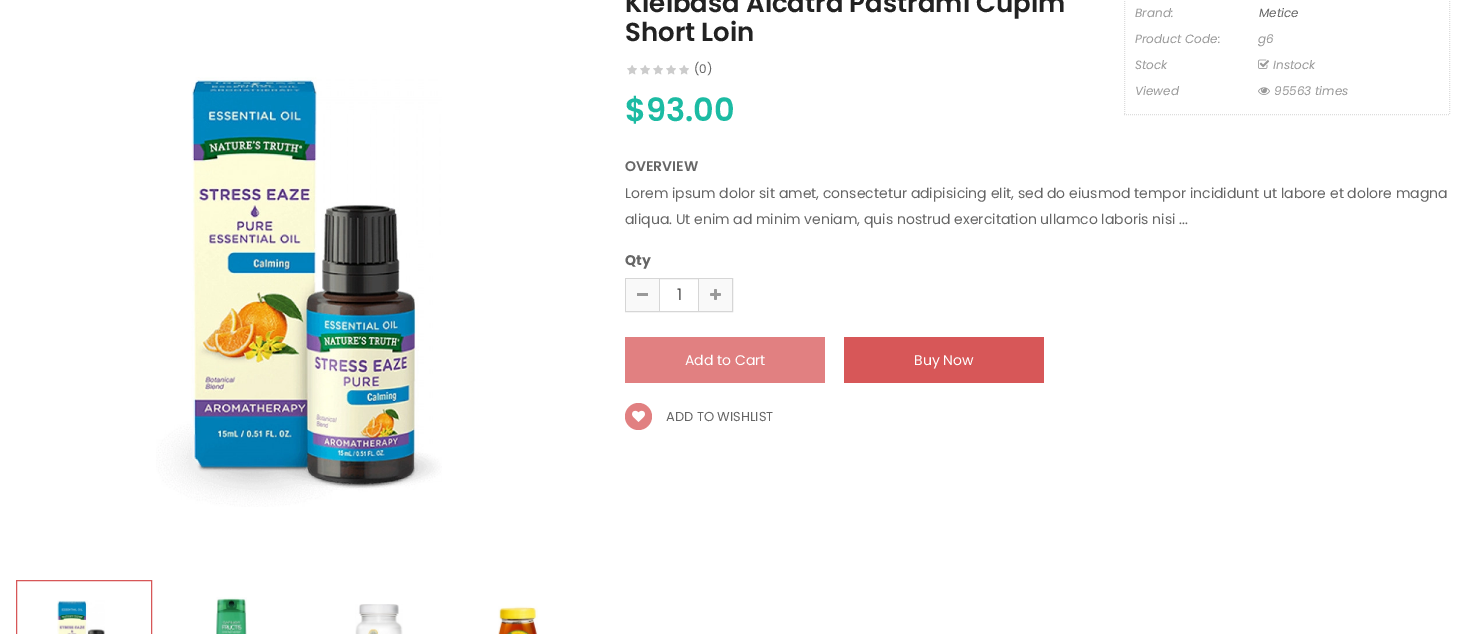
%!PS
<< /PageSize [1465 634] >> setpagedevice
/rgb { dup -16 bitshift 255 div exch dup -8 bitshift 255 and 255 div exch 255 and 255 div setrgbcolor } def
/font { [ exch dup neg 0 0 3 -1 roll 0 0 ] selectfont } def
/text { moveto show } def
/circle { newpath 0 360 arc closepath } def
/picture { 5 dict begin { /h /w /y /x /name } { exch def } forall
  gsave x y translate w h scale
  w h 8 [w 0 0 h 0 0] name (r) file false 3 colorimage grestore end } def
0 634 translate 1 -1 scale
4 setmiterlimit
/s1 { /Poppins-SemiBold 26 font 16#222222 rgb } def
/s2 { /Poppins-Regular 12 font 16#666666 rgb } def
/s3 { /Poppins-SemiBold 32 font 16#1CBBA3 rgb } def
/s4 { /Poppins-Italic 12 font 16#999999 rgb } def
/s5 { /Poppins-Italic 12 font 16#666666 rgb } def
/s6 { /Poppins-SemiBold 14 font 16#666666 rgb } def
/s7 { /Poppins-Regular 14 font 16#666666 rgb } def
/s8 { /Poppins-Bold 14 font 16#666666 rgb } def
/s9 { /Poppins-Regular 16 font 16#3D3D3D rgb } def
/s10 { /Poppins-Regular 14 font 16#FFFFFF rgb } def
/s11 { /Poppins-Regular 13 font 16#666666 rgb } def
16#FFFFFF rgb
0 0 1465 634 rectfill
(pic1.raw) 156 77 286 430 picture
16#D75758 rgb
16.5 580.5 135 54 rectstroke
(pic2.raw) 57 600 48 34 picture
(pic3.raw) 216 597 31 37 picture
(pic4.raw) 355 604 48 30 picture
(pic5.raw) 498 606 40 28 picture
s1
(Kielbasa Alcatra Pastrami Cupim) 625 12 text
(Short Loin) 625 41 text
(pic6.raw) 627 65 10 10 picture
(pic6.raw) 640 65 10 10 picture
(pic6.raw) 653 65 10 10 picture
(pic6.raw) 666 65 10 10 picture
(pic6.raw) 679 65 10 10 picture
s2
(\(0\)) 694 73 text
s3
($93.00) 625 121 text
16#DDDDDD rgb
[1 1] 0 setdash
1449.5 -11 moveto 1449.5 115 lineto stroke
1124 114.5 moveto 1450 114.5 lineto stroke
1124.5 -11 moveto 1124.5 115 lineto stroke
s4
(Brand:) 1135 17 text
s5
(Metice) 1259 17 text
s4
(Product Code:) 1135 43 text
(g6) 1258 43 text
(Stock) 1135 69 text
(pic7.raw) 1258 59 12 10 picture
(Instock) 1273 69 text
(Viewed) 1135 95 text
(pic8.raw) 1258 87 12 8 picture
(95563 times) 1274 95 text
s6
(OVERVIEW) 625 171 text
s7
(Lorem ipsum dolor sit amet, consectetur adipisicing elit, sed do eiusmod tempor incididunt ut labore et dolore magna) 625 198 text
(aliqua. Ut enim ad minim veniam, quis nostrud exercitation ullamco laboris nisi ...) 625 224 text
s8
(Qty) 625 265 text
16#D6D6D6 rgb
[] 0 setdash
625.5 278.5 107 33 rectstroke
16#F9F9F9 rgb
626 279 33 32 rectfill
16#999999 rgb
637 293 11 3 rectfill
16#D6D6D6 rgb
698 279 1 32 rectfill
659 279 1 32 rectfill
s9
(1) 677 300 text
16#F9F9F9 rgb
699 279 33 32 rectfill
(pic9.raw) 710 289 11 11 picture
16#E18081 rgb
625 337 200 46 rectfill
s10
(Add to Cart) 685 365 text
16#D75758 rgb
844 337 200 46 rectfill
s10
(Buy Now) 914 365 text
16#E18081 rgb
638.5 416.5 13.5 circle fill
(pic10.raw) 632 410 13 12 picture
s11
(ADD TO WISHLIST) 666 421 text
showpage
